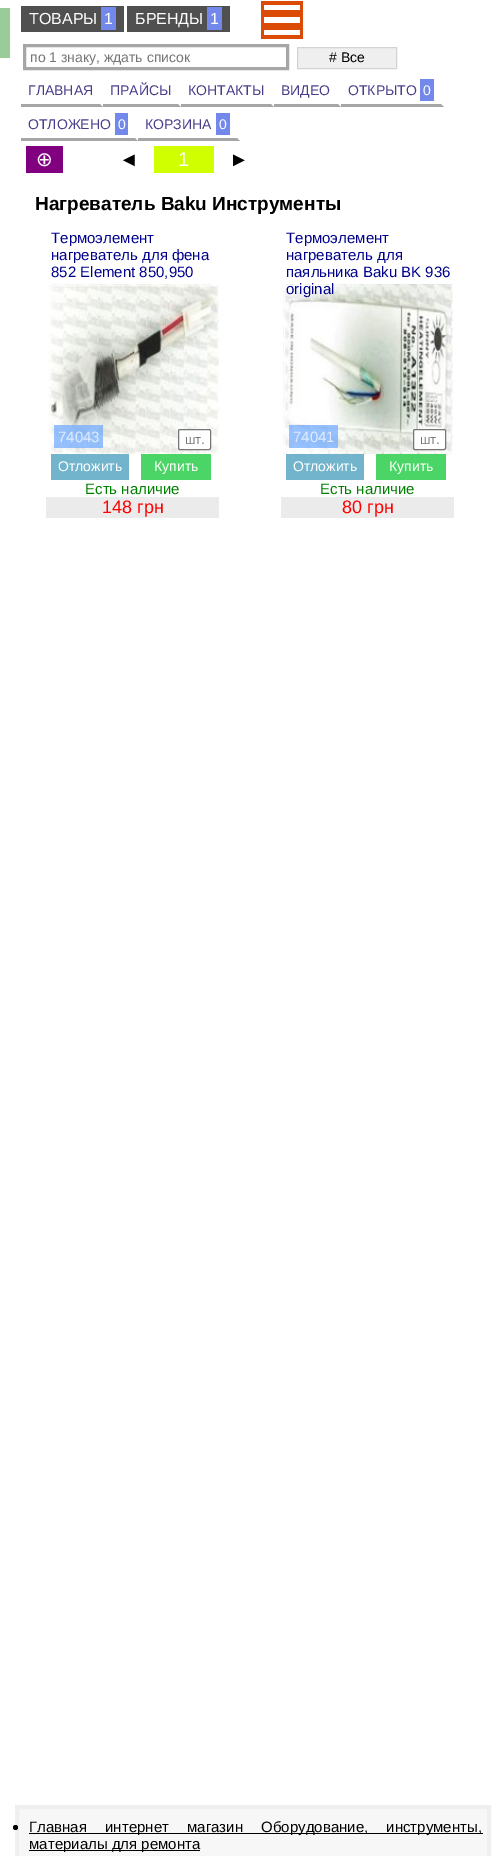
%!PS
<< /PageSize [501 1856] /PageUsesTransparency true >> setpagedevice
/rgb { dup -16 bitshift 255 div exch dup -8 bitshift 255 and 255 div exch 255 and 255 div setrgbcolor } def
/font { [ exch dup neg 0 0 3 -1 roll 0 0 ] selectfont } def
/text { moveto show } def
/alpha { dup .setfillconstantalpha .setstrokeconstantalpha } def
/circle { newpath 0 360 arc closepath } def
/roundrect { 5 dict begin { /r /h /w /y /x } { exch def } forall
  x r add y moveto x w add y 2 copy h add r arct x w add y h add x 1 index r arct
  x y h add x y r arct x y 2 copy exch w add exch r arct closepath end } def
/picture { 5 dict begin { /h /w /y /x /name } { exch def } forall
  gsave x y translate w h scale
  w h 8 [w 0 0 h 0 0] name (r) file false 3 colorimage grestore end } def
0 .pushpdf14devicefilter
0 1856 translate 1 -1 scale
4 setmiterlimit
/s1 { /LiberationSans-Regular 16 font 16#FFFFFF rgb } def
/s2 { /LiberationSans-Regular 14 font 16#757575 rgb } def
/s3 { /LiberationSans-Regular 14 font 16#000000 rgb } def
/s4 { /LiberationSans-Regular 14 font 16#483D8B rgb } def
/s5 { /LiberationSans-Regular 14 font 16#FFFFFF rgb } def
/s6 { /DejaVuSans-Regular 20 font 16#FFFFFF rgb } def
/s7 { /LiberationSans-Regular 20 font 16#000000 rgb } def
/s8 { /LiberationSans-Regular 20 font 16#FFFFFF rgb } def
/s9 { /LiberationSans-Bold 19 font 16#000000 rgb } def
/s10 { /LiberationSans-Regular 15 font 16#00008B rgb } def
/s11 { /LiberationSans-Regular 15 font 16#DFECFD rgb } def
/s12 { /LiberationSans-Regular 13 font 16#757575 rgb } def
/s13 { /LiberationSans-Regular 15 font 16#008000 rgb } def
/s14 { /LiberationSans-Regular 18 font 16#FF0000 rgb } def
/s15 { /LiberationSans-Regular 15 font 16#000000 rgb } def
16#FFFFFF rgb
0 0 501 1856 rectfill
16#99CC99 rgb
0 8 10 50 rectfill
16#505050 rgb
21 6 103 26 rectfill
s1
(ТОВАРЫ) 29 24 text
16#7288EB rgb
101 7 15 23 rectfill
s1
(1) 104 24 text
16#505050 rgb
127 6 103 26 rectfill
s1
(БРЕНДЫ) 135 24 text
16#7288EB rgb
207 7 15 23 rectfill
s1
(1) 210 24 text
16#DC4B05 rgb
261 1 42 38 rectfill
16#FFFFFF rgb
264 5 36 5 rectfill
264 17 36 6 rectfill
264 30 36 5 rectfill
16#A6A6A6 rgb
3 setlinewidth
24.5 45.5 263 23 rectstroke
s2
(по 1 знаку, ждать список) 30 62 text
16#EFEFEF rgb
297.5 47.5 moveto 396.5 47.5 lineto 396.5 68.5 lineto 297.5 68.5 lineto closepath gsave fill grestore
16#D3D3D3 rgb
1 setlinewidth
stroke
s3
(# Все) 329 62 text
16#A6A6A6 rgb
103 107 moveto 21 107 lineto 21 104 lineto 100 104 lineto closepath fill
s4
(ГЛАВНАЯ) 28 95 text
16#A6A6A6 rgb
181 107 moveto 103 107 lineto 103 104 lineto 178 104 lineto closepath fill
s4
(ПРАЙСЫ) 110 95 text
16#A6A6A6 rgb
274 107 moveto 181 107 lineto 181 104 lineto 271 104 lineto closepath fill
s4
(КОНТАКТЫ) 188 95 text
16#A6A6A6 rgb
341 107 moveto 274 107 lineto 274 104 lineto 338 104 lineto closepath fill
s4
(ВИДЕО) 281 95 text
16#A6A6A6 rgb
444 107 moveto 341 107 lineto 341 104 lineto 441 104 lineto closepath fill
s4
(ОТКРЫТО) 348 95 text
16#7288EB rgb
420 79 14 22 rectfill
s5
(0) 423 95 text
16#A6A6A6 rgb
138 141 moveto 21 141 lineto 21 138 lineto 135 138 lineto closepath fill
s4
(ОТЛОЖЕНО) 28 129 text
16#7288EB rgb
115 113 13 22 rectfill
s5
(0) 118 129 text
16#A6A6A6 rgb
240 141 moveto 138 141 lineto 138 138 lineto 237 138 lineto closepath fill
s4
(КОРЗИНА) 145 129 text
16#7288EB rgb
216 113 14 22 rectfill
s5
(0) 219 129 text
16#800080 rgb
26 146 37 27 rectfill
s6
(⊕) 36 166 text
s7
(◄) 119 166 text
16#D0FF00 rgb
154 146 60 27 rectfill
s8
(1) 178 166 text
s7
(►) 229 166 text
s9
(Нагреватель Baku Инструменты) 35 210 text
s10
(Термоэлемент) 51 243 text
(нагреватель для фена) 51 260 text
(852 Element 850,950) 51 277 text
(pic1.raw) 49 284 170 170 picture
0.7 alpha
16#6BA8FF rgb
54 425 49 23 rectfill
1 alpha
s11
(74043) 58 442 text
16#FFFFFF rgb
178.5 429.5 32 20 1.5 roundrect gsave fill grestore
16#767676 rgb
stroke
s12
(шт.) 185 444 text
16#71B4CC rgb
51 454 78 26 rectfill
s5
(Отложить) 58 471 text
16#4BD566 rgb
141 454 70 26 rectfill
s5
(Купить) 154 471 text
s13
(Есть наличие) 85 494 text
16#EBEBEB rgb
46 497 173 21 rectfill
s14
(148 грн) 102 513 text
s10
(Термоэлемент) 286 243 text
(нагреватель для) 286 260 text
(паяльника Baku BK 936) 286 277 text
(pic2.raw) 283 284 170 170 picture
(original) 286 294 text
0.7 alpha
16#6BA8FF rgb
289 425 49 23 rectfill
1 alpha
s11
(74041) 293 442 text
16#FFFFFF rgb
413.5 429.5 32 20 1.5 roundrect gsave fill grestore
16#767676 rgb
stroke
s12
(шт.) 420 444 text
16#71B4CC rgb
286 454 78 26 rectfill
s5
(Отложить) 293 471 text
16#4BD566 rgb
376 454 70 26 rectfill
s5
(Купить) 389 471 text
s13
(Есть наличие) 320 494 text
16#EBEBEB rgb
281 497 173 21 rectfill
s14
(80 грн) 342 513 text
16#F7F7F7 rgb
17 1807 moveto 489 1807 lineto 489 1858 lineto 17 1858 lineto closepath gsave fill grestore
16#EFEFEF rgb
4 setlinewidth
stroke
16#000000 rgb
15.5 1827.5 2.5 circle fill
29 1833 454 1 rectfill
/LiberationSans-Regular 15 font
29 1832 moveto 14 0 32 (Главная интернет магазин Оборудование, инструменты,) widthshow
29 1850 171 1 rectfill
(материалы для ремонта) 29 1849 text
.poppdf14devicefilter showpage
